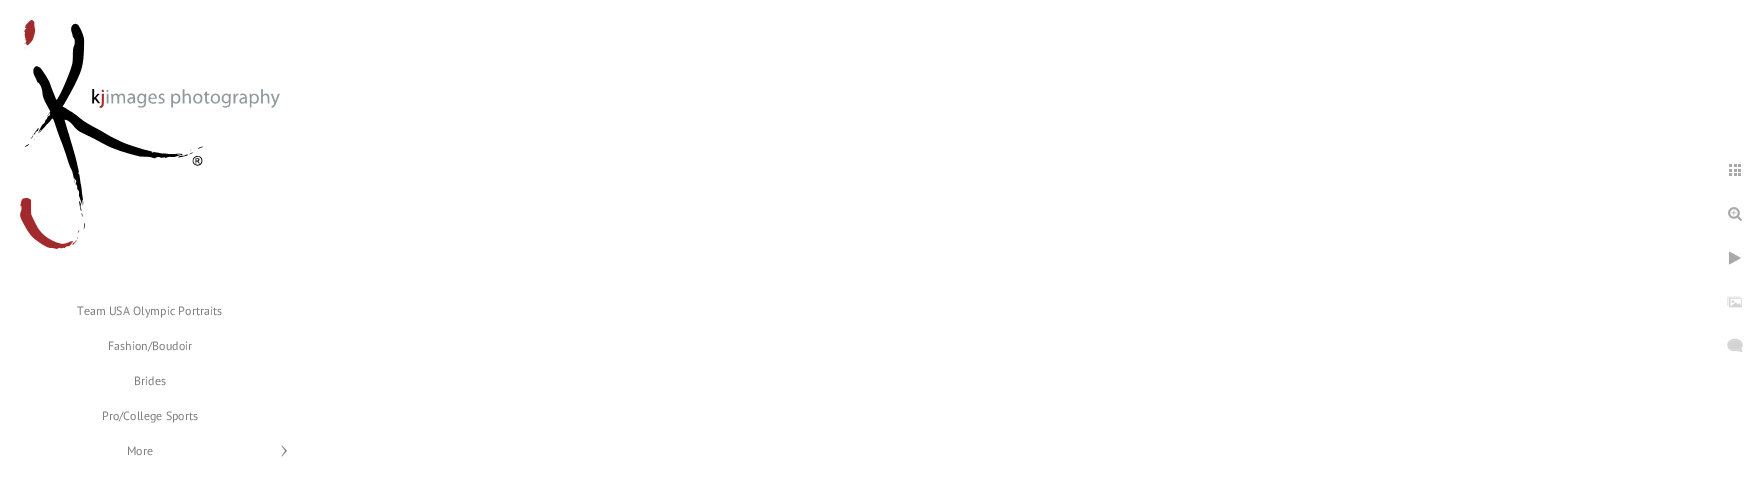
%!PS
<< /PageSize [1762 495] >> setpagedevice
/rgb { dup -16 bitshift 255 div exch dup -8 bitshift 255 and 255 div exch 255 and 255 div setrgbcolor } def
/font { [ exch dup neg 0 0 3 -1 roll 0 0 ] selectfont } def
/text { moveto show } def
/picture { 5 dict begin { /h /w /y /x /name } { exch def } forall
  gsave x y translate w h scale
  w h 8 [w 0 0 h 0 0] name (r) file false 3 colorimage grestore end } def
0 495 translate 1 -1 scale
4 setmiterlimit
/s1 { /PTSans-Regular 12 font 16#808080 rgb } def
16#FFFFFF rgb
0 0 1762 495 rectfill
(pic1.raw) 1729 164 12 12 picture
(pic2.raw) 1728 207 14 14 picture
(pic3.raw) 1729 251 12 14 picture
(pic4.raw) 1727 296 15 12 picture
(pic5.raw) 1727 338 16 14 picture
(pic6.raw) 20 20 260 229 picture
s1
(Team USA Olympic Portraits) 77 315 text
(Fashion/Boudoir) 108 350 text
(Brides) 134 385 text
(Pro/College Sports) 102 420 text
(More) 127 455 text
(pic7.raw) 281 445 6 12 picture
showpage
